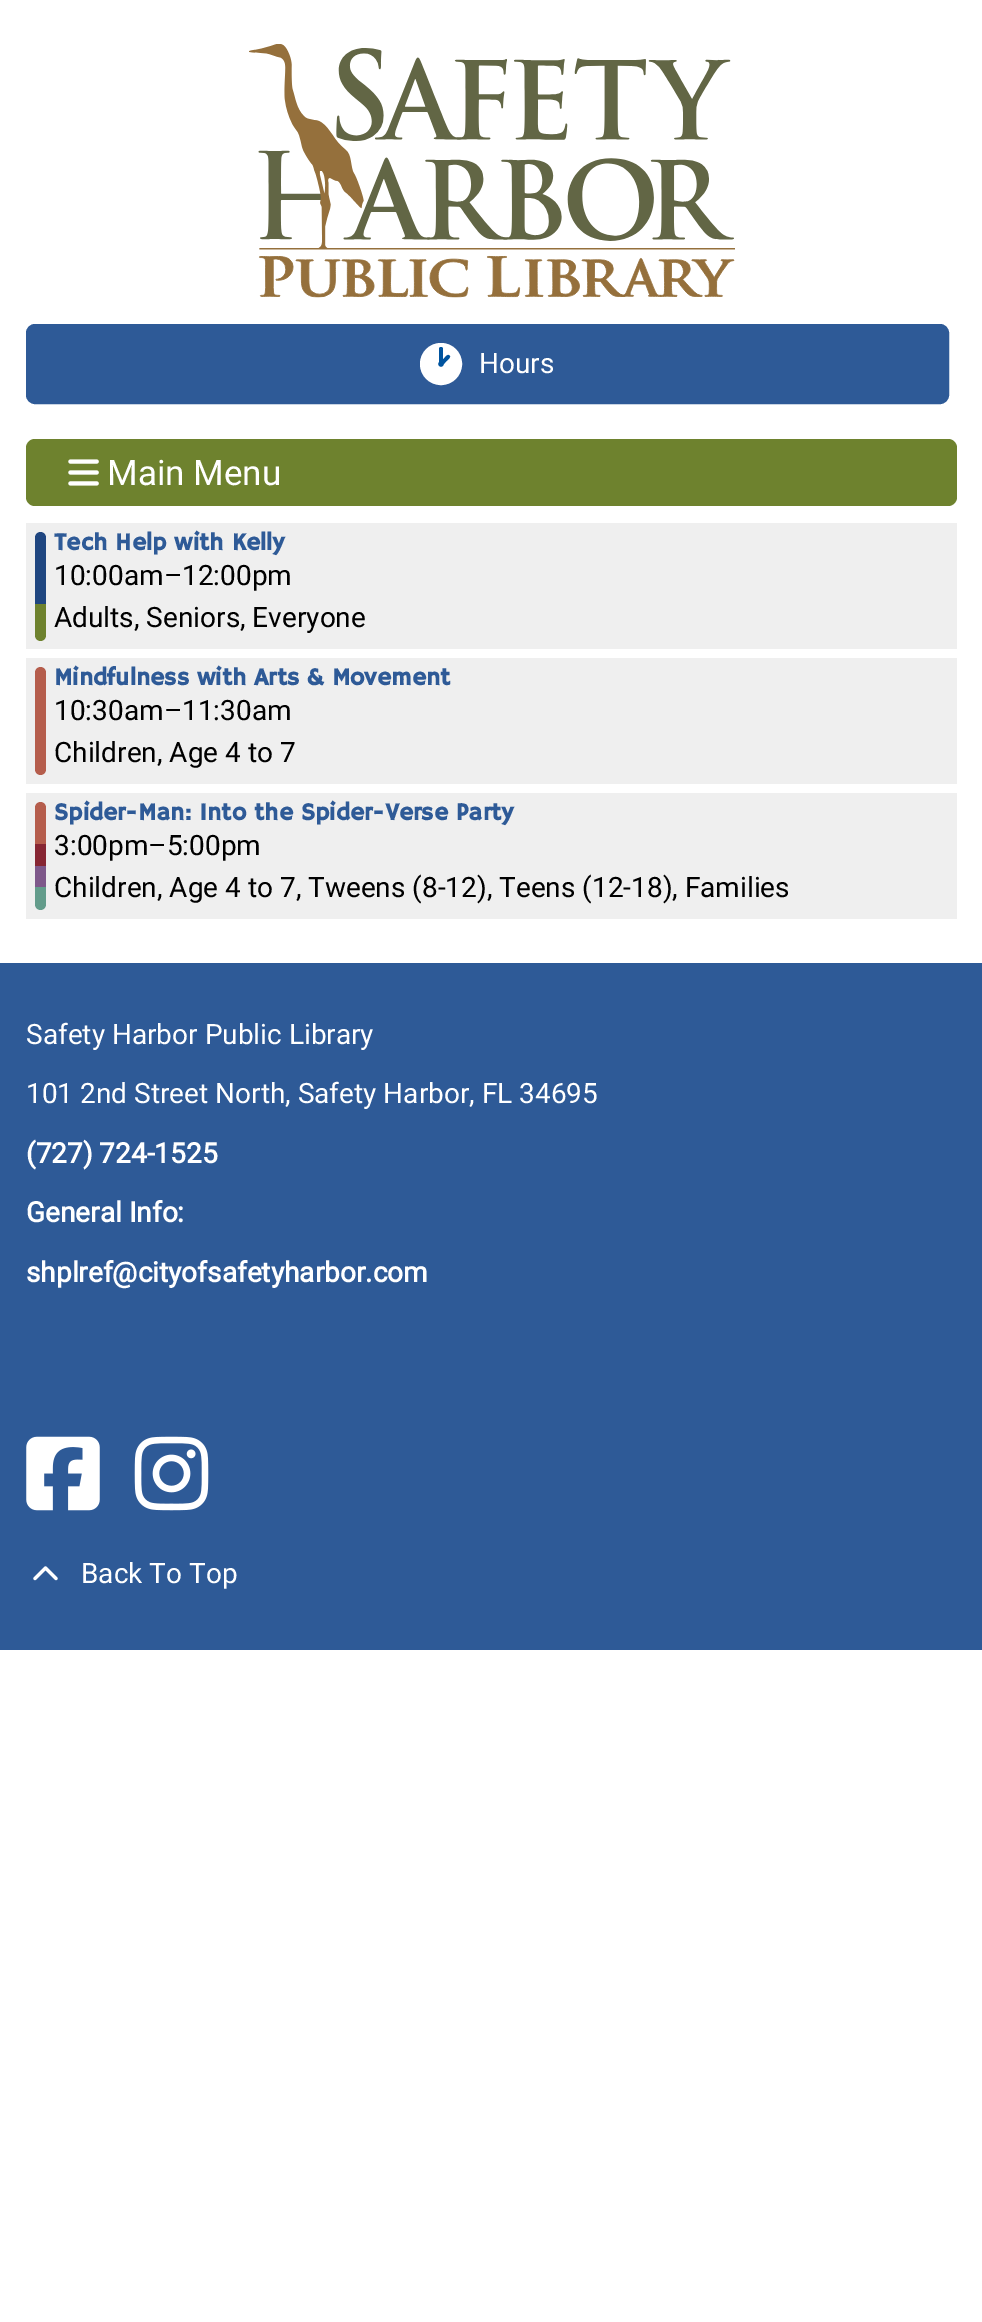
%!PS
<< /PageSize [982 2322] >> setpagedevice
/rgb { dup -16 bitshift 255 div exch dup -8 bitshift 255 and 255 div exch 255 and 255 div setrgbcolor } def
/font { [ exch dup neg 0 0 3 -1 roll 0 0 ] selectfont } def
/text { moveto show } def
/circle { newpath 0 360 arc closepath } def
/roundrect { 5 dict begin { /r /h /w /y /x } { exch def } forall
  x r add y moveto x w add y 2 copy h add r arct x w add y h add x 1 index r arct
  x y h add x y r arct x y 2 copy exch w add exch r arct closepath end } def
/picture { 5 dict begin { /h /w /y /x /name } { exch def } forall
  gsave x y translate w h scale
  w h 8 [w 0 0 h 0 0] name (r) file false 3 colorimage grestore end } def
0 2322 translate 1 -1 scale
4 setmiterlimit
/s1 { /Roboto-Regular 28 font 16#FFFFFF rgb } def
/s2 { /Roboto-Regular 35 font 16#FFFFFF rgb } def
/s3 { /HammersmithOne-Bold 24.5 font 16#2E5A97 rgb } def
/s4 { /Roboto-Regular 28 font 16#000000 rgb } def
/s5 { /Roboto-Bold 28 font 16#FFFFFF rgb } def
16#FFFFFF rgb
0 0 982 2322 rectfill
(pic1.raw) 249 44 486 254 picture
16#2E5A97 rgb
27 325 921 78 8 roundrect gsave fill grestore
2 setlinewidth
stroke
16#00549F rgb
441 364 12 circle gsave fill grestore
16#FFFFFF rgb
18 setlinewidth
stroke
16#00549F rgb
439 347 4 17 2 roundrect fill
449.5 355.5 moveto 451.5 357 447.5 360 446.5 361 curveto 445.5 362 443 366 441 364 curveto 439 362 443 359.5 444 358.5 curveto 445 357.5 447.5 353.5 449.5 355.5 curveto closepath fill
s1
(Hours) 479 373 text
16#6E822E rgb
26 439 931 67 9 roundrect fill
(pic2.raw) 68 459 31 27 picture
s2
(Main Menu) 107 485 text
16#EFEFEF rgb
26 523 931 126 rectfill
16#1F4680 rgb
40.5 532 moveto 43.5 532 46 534.5 46 537.5 curveto 46 567 lineto 35 567 lineto 35 537.5 lineto 35 534.5 37.5 532 40.5 532 curveto closepath fill
35 567 11 37 rectfill
16#6E822E rgb
35 604 moveto 46 604 lineto 46 635.5 lineto 46 638.5 43.5 641 40.5 641 curveto 37.5 641 35 638.5 35 635.5 curveto closepath fill
s3
(Tech Help with Kelly) 54 550 text
s4
(10:00am–12:00pm) 54 585 text
(Adults, Seniors, Everyone) 54 627 text
16#EFEFEF rgb
26 658 931 126 rectfill
16#B55D4C rgb
40.5 667 moveto 43.5 667 46 669.5 46 672.5 curveto 46 721 lineto 35 721 lineto 35 672.5 lineto 35 669.5 37.5 667 40.5 667 curveto closepath fill
35 721 moveto 46 721 lineto 46 769.5 lineto 46 772.5 43.5 775 40.5 775 curveto 37.5 775 35 772.5 35 769.5 curveto closepath fill
s3
(Mindfulness with Arts & Movement) 54 685 text
s4
(10:30am–11:30am) 54 720 text
(Children, Age 4 to 7) 54 762 text
16#EFEFEF rgb
26 793 931 126 rectfill
16#B55D4C rgb
40.5 802 moveto 43.5 802 46 804.5 46 807.5 curveto 46 823 lineto 35 823 lineto 35 807.5 lineto 35 804.5 37.5 802 40.5 802 curveto closepath fill
35 823 11 21 rectfill
16#872633 rgb
35 844 11 22 rectfill
16#7E588A rgb
35 866 11 21 rectfill
16#639C8B rgb
35 887 moveto 46 887 lineto 46 904.5 lineto 46 907.5 43.5 910 40.5 910 curveto 37.5 910 35 907.5 35 904.5 curveto closepath fill
s3
(Spider-Man: Into the Spider-Verse Party) 54 820 text
s4
(3:00pm–5:00pm) 54 855 text
(Children, Age 4 to 7, Tweens \(8-12\), Teens \(12-18\), Families) 54 897 text
16#2E5A97 rgb
0 963 982 687 rectfill
s1
(Safety Harbor Public Library) 26 1044 text
(101 2nd Street North, Safety Harbor, FL 34695) 26 1103 text
s5
(\(727\) 724-1525) 26 1163 text
(General Info:) 26 1222 text
(shplref@cityofsafetyharbor.com) 26 1282 text
(pic3.raw) 26 1436 74 75 picture
(pic4.raw) 134 1436 75 75 picture
(pic5.raw) 33 1566 25 15 picture
s1
(Back To Top) 81 1583 text
showpage
